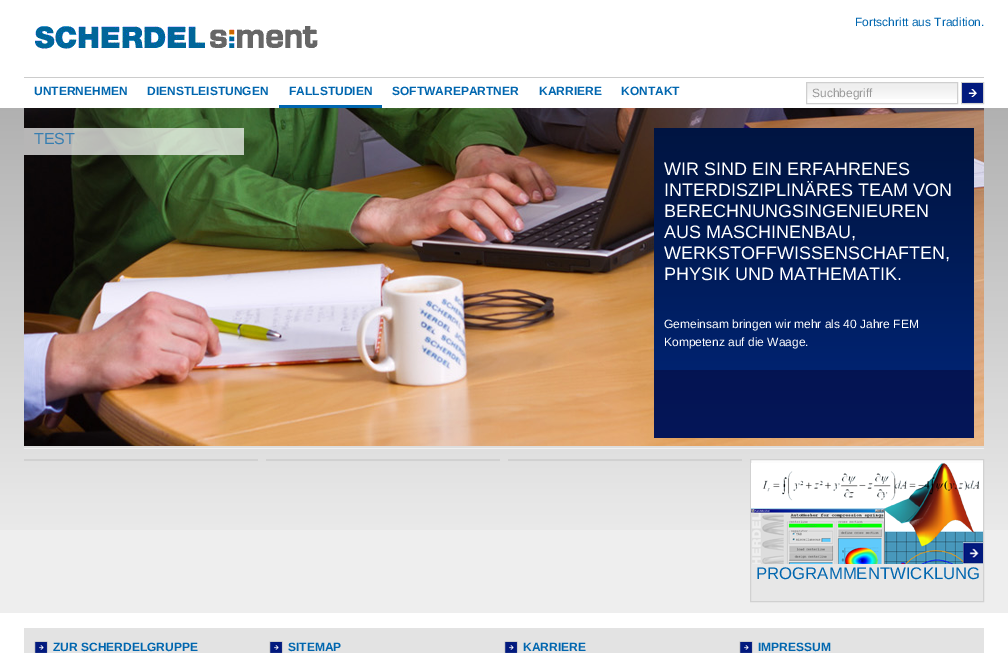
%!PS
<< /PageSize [1008 653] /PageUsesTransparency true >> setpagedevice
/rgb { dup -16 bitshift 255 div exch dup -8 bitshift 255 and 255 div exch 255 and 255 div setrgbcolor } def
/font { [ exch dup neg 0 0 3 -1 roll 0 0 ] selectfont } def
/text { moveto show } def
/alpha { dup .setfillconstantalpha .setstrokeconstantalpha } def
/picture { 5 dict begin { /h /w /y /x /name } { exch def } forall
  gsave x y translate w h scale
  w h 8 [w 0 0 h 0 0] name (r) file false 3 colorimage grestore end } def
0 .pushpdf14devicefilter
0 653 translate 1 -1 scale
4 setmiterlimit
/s1 { /LiberationSans-Regular 12 font 16#0066AF rgb } def
/s2 { /LiberationSans-Bold 12 font 16#0066AF rgb } def
/s3 { /LiberationSans-Regular 12 font 16#999999 rgb } def
/s4 { /LiberationSans-Regular 16 font 16#377EB1 rgb } def
/s5 { /LiberationSans-Regular 18 font 16#FFFFFF rgb } def
/s6 { /LiberationSans-Regular 12 font 16#FFFFFF rgb } def
/s7 { /LiberationSans-Regular 16.75 font 16#0066AF rgb } def
16#FFFFFF rgb
0 0 1008 653 rectfill
s1
(Fortschritt aus Tradition.) 855 26 text
(pic1.raw) 35 26 283 23 picture
16#CCCCCC rgb
24 77 960 1 rectfill
s2
(UNTERNEHMEN) 34 95 text
(DIENSTLEISTUNGEN) 147 95 text
279 105 103 3 rectfill
(FALLSTUDIEN) 289 95 text
(SOFTWAREPARTNER) 392 95 text
(KARRIERE) 539 95 text
(KONTAKT) 621 95 text
(pic2.raw) 807 83 150 16 picture
16#CFCFCF rgb
806.5 82.5 151 21 rectstroke
s3
(Suchbegriff) 812 97 text
16#CFCFCF rgb
961.5 82.5 22 21 rectstroke
(pic3.raw) 962 83 21 20 picture
16#EEEEEE rgb
0 530 1008 83 rectfill
(pic4.raw) 0 108 1008 422 picture
(pic5.raw) 24 108 960 338 picture
16#F0F0F0 rgb
24 448 960 1 rectfill
0.7 alpha
16#FFFFFF rgb
24 128 220 27 rectfill
1 alpha
s4
(TEST) 34 144 text
(pic6.raw) 654 128 320 310 picture
s5
(WIR SIND EIN ERFAHRENES) 664 175 text
(INTERDISZIPLINÄRES TEAM VON) 664 196 text
(BERECHNUNGSINGENIEUREN) 664 217 text
(AUS MASCHINENBAU,) 664 238 text
(WERKSTOFFWISSENSCHAFTEN,) 664 259 text
(PHYSIK UND MATHEMATIK.) 664 280 text
s6
(Gemeinsam bringen wir mehr als 40 Jahre FEM) 664 328 text
(Kompetenz auf die Waage.) 664 346 text
16#D1D1D1 rgb
24 459 234 2 rectfill
266 459 234 2 rectfill
508 459 234 2 rectfill
16#E7E7E7 rgb
751 564 232 37 rectfill
(pic7.raw) 751 460 232 3 picture
16#D1D1D1 rgb
750.5 459.5 233 142 rectstroke
(pic8.raw) 751 463 232 101 picture
s7
(PROGRAMMENTWICKLUNG) 756 579 text
16#E3E3E3 rgb
24 628 960 25 rectfill
(pic9.raw) 34 641 14 12 picture
s2
(ZUR SCHERDELGRUPPE) 53 651 text
(pic9.raw) 269 641 14 12 picture
(SITEMAP) 288 651 text
(pic9.raw) 504 641 14 12 picture
(KARRIERE) 523 651 text
(pic9.raw) 739 641 14 12 picture
(IMPRESSUM) 758 651 text
.poppdf14devicefilter showpage
